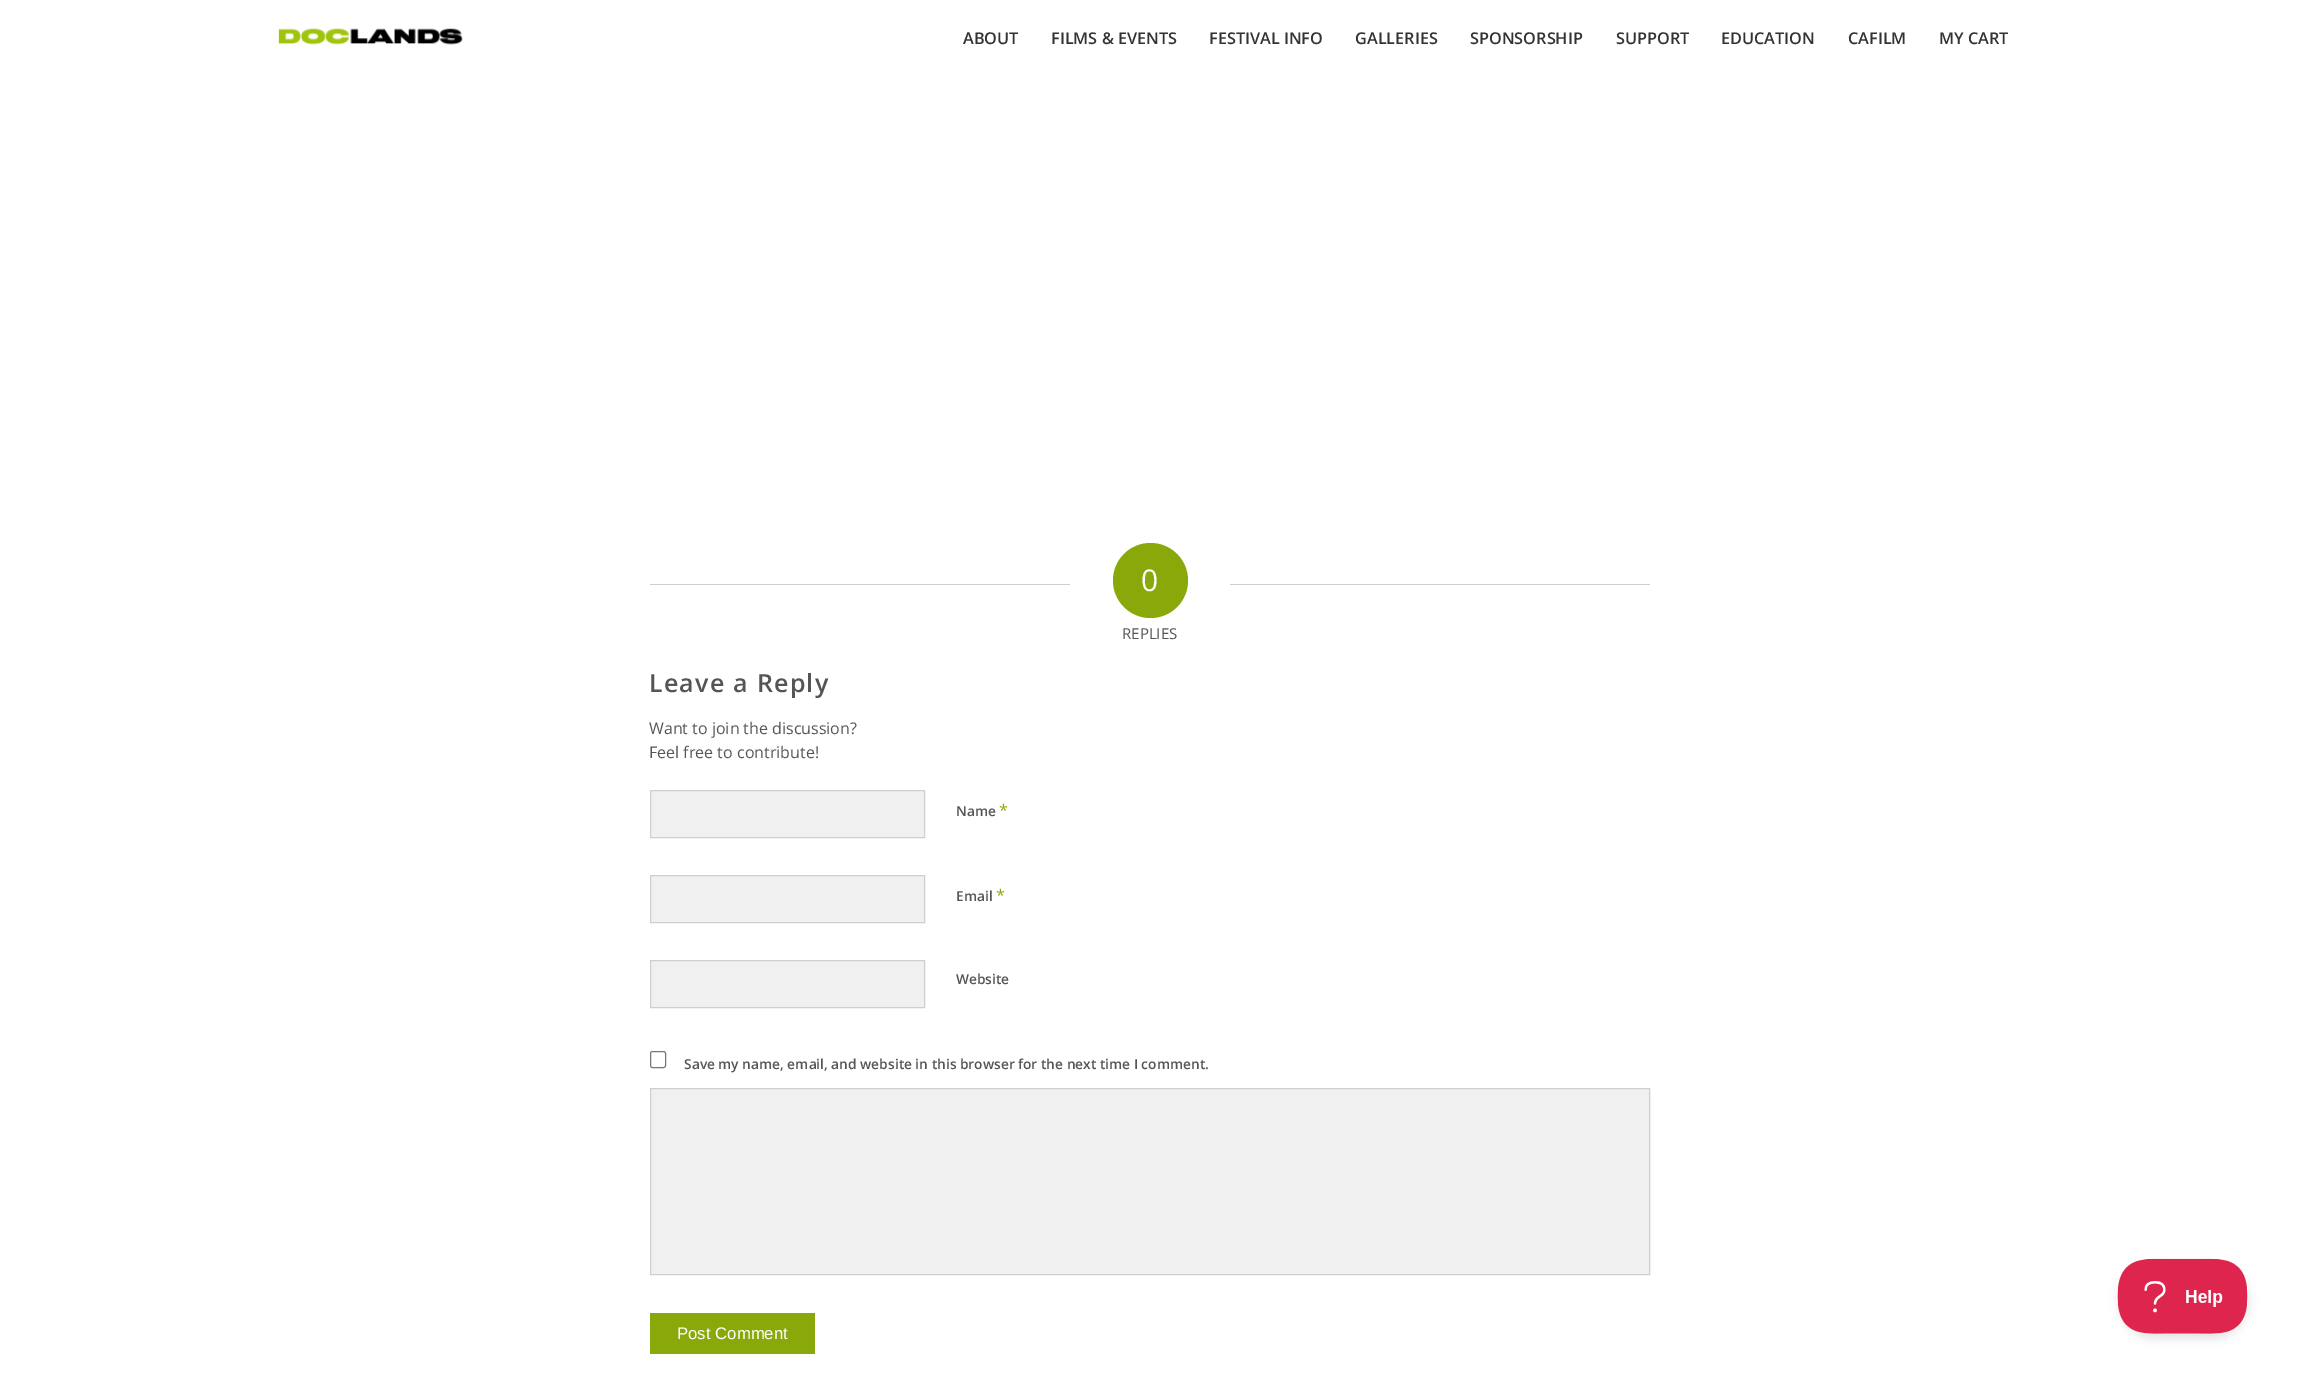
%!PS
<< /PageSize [2298 1383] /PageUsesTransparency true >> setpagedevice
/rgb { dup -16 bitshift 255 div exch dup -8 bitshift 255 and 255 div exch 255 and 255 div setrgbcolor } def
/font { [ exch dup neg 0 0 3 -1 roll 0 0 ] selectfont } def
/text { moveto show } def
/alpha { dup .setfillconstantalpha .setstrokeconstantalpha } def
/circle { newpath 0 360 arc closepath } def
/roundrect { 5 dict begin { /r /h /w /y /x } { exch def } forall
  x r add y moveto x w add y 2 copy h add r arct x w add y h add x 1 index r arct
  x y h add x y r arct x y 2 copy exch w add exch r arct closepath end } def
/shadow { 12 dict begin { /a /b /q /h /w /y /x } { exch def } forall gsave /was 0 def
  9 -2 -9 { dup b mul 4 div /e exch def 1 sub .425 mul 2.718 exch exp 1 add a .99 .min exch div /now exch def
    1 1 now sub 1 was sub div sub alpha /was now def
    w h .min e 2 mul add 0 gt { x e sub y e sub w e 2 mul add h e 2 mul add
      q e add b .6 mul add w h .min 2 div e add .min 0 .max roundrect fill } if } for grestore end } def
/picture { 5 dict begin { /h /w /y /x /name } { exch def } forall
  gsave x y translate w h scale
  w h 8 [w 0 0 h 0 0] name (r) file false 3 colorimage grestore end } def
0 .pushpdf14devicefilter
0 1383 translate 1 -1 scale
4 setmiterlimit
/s1 { /OpenSans-SemiBold 16.25 font 16#333333 rgb } def
/s2 { /OpenSans-Regular 30 font 16#FFFFFF rgb } def
/s3 { /OpenSans-Regular 15 font 16#555555 rgb } def
/s4 { /OpenSans-Regular 16 font 16#555555 rgb } def
/s5 { /OpenSans-SemiBold 13.75 font 16#555555 rgb } def
/s6 { /OpenSans-Regular 16.25 font 16#89A90B rgb } def
/s7 { /LiberationSans-Regular 16.75 font 16#FFFFFF rgb } def
16#FFFFFF rgb
0 0 2298 1383 rectfill
(pic1.raw) 278 28 185 17 picture
s1
(ABOUT) 963 44 text
(FILMS & EVENTS) 1051 44 text
(FESTIVAL INFO) 1209 44 text
(GALLERIES) 1355 44 text
(SPONSORSHIP) 1470 44 text
(SUPPORT) 1616 44 text
(EDUCATION) 1721 44 text
(CAFILM) 1848 44 text
(MY CART) 1939 44 text
16#CFCFCF rgb
650 584 420 1 rectfill
16#89A90B rgb
1150.5 580.5 37.5 circle fill
s2
(0) 1141 591 text
16#CFCFCF rgb
1230 584 420 1 rectfill
s3
(REPLIES) 1122 639 text
/OpenSans-SemiBold 25 font
649 692 moveto 1.25 0 (Leave a Reply) ashow
s4
(Want to join the discussion?) 649 734 text
(Feel free to contribute!) 649 758 text
16#F0F0F0 rgb
650.5 790.5 moveto 924.5 790.5 lineto 924.5 837.5 lineto 650.5 837.5 lineto closepath gsave fill grestore
16#CFCFCF rgb
stroke
s5
(Name) 956 816 text
s6
(*) 999 816 text
16#F0F0F0 rgb
650.5 875.5 moveto 924.5 875.5 lineto 924.5 922.5 lineto 650.5 922.5 lineto closepath gsave fill grestore
16#CFCFCF rgb
stroke
s5
(Email) 956 901 text
s6
(*) 996 901 text
16#F0F0F0 rgb
650.5 960.5 moveto 924.5 960.5 lineto 924.5 1007.5 lineto 650.5 1007.5 lineto closepath gsave fill grestore
16#CFCFCF rgb
stroke
s5
(Website) 956 984 text
16#767676 rgb
650.5 1051.5 15 16 2 roundrect stroke
s5
(Save my name, email, and website in this browser for the next time I comment.) 684 1069 text
16#F0F0F0 rgb
650.5 1088.5 moveto 1649.5 1088.5 lineto 1649.5 1274.5 lineto 650.5 1274.5 lineto closepath gsave fill grestore
16#CFCFCF rgb
stroke
16#89A90B rgb
650 1313 165 41 rectfill
s7
(Post Comment) 677 1339 text
16#000000 rgb
2118 1264 131 75 37.5 4.5 0.1 shadow
(pic2.raw) 2117 1258 131 76 picture
.poppdf14devicefilter showpage
